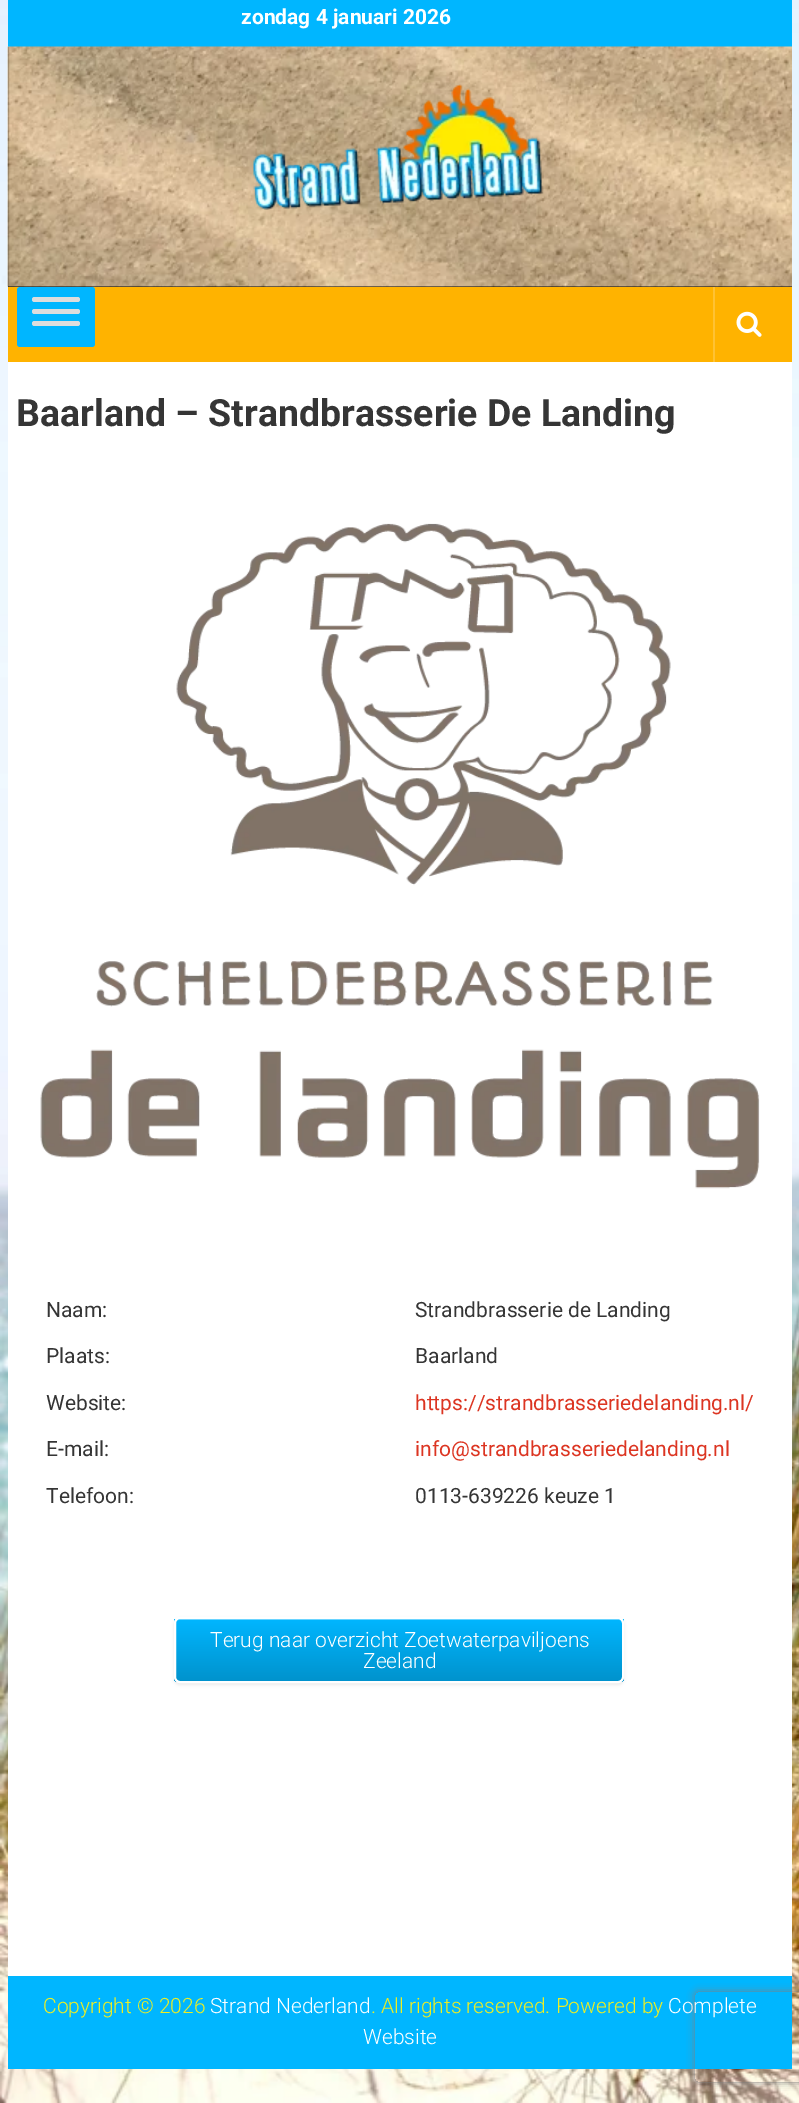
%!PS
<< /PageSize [799 2103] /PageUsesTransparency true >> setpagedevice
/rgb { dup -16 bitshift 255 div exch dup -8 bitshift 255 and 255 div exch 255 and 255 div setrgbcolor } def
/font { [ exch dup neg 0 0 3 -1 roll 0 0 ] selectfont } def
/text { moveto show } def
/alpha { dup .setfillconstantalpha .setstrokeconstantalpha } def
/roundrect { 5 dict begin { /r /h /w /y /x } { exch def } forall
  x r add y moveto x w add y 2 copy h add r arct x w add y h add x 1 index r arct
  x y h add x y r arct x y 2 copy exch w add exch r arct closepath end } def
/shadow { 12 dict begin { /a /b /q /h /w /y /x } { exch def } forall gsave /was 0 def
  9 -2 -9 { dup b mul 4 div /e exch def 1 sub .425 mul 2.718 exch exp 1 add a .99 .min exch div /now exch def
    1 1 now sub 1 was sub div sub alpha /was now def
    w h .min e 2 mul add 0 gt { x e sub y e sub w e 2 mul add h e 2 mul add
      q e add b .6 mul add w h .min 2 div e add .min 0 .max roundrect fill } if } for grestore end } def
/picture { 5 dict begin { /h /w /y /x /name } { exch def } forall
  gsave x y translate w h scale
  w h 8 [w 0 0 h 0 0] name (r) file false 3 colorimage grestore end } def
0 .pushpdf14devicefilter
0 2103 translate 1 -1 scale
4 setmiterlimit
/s1 { /Roboto-Bold 21 font 16#FFFFFF rgb } def
/s2 { /Roboto-Bold 37.5 font 16#353535 rgb } def
/s3 { /Roboto-Regular 21 font 16#353535 rgb } def
/s4 { /Roboto-Regular 21 font 16#DC3522 rgb } def
/s5 { /Roboto-Light 21 font 16#FFFFFF rgb } def
/s6 { /Roboto-Light 21 font 16#EEEE22 rgb } def
16#FFFFFF rgb
0 0 799 2103 rectfill
(pic1.raw) 0 0 799 2103 picture
8 362 784 1614 rectfill
16#00B6FF rgb
8 0 784 47 rectfill
s1
(zondag 4 januari 2026) 241 24 text
16#000000 rgb
8 47 784 240 rectfill
(pic2.raw) 7 46 785 241 picture
(pic3.raw) 253 84 291 126 picture
16#FFB300 rgb
8 287 784 75 rectfill
16#00B6FF rgb
17 287 78 60 3 roundrect fill
16#DDDDDD rgb
32 297 48 5 2.5 roundrect fill
32 309 48 5 2.5 roundrect fill
32 321 48 5 2.5 roundrect fill
16#FFC233 rgb
713 287 2 75 rectfill
(pic4.raw) 736 311 26 26 picture
s2
(Baarland – Strandbrasserie De Landing) 16 426 text
(pic5.raw) 40 523 720 666 picture
s3
(Naam:) 46 1317 text
(Strandbrasserie de Landing) 415 1317 text
(Plaats:) 46 1363 text
(Baarland) 415 1363 text
(Website:) 46 1410 text
s4
(https://strandbrasseriedelanding.nl/) 415 1410 text
s3
(E-mail:) 46 1456 text
s4
(info@strandbrasseriedelanding.nl) 415 1456 text
s3
(Telefoon:) 46 1503 text
(0113-639226 keuze 1) 415 1503 text
16#000000 rgb
174 1619 450 66 6 1.5 0.07 shadow
gsave
174 1617 450 66 6 roundrect clip newpath
gsave 174 1619 moveto 624 1619 lineto 624 1682 lineto 174 1682 lineto closepath clip newpath
<< /ShadingType 2 /ColorSpace /DeviceRGB /Coords [176 1682 176 1619] /Extend [true true] /Function << /FunctionType 2 /Domain [0 1] /C0 [0 0.573 0.8] /C1 [0 0.714 1] /N 1 >> >> shfill grestore
grestore
0.2 alpha
16#FFFFFF rgb
179 1620 moveto 619 1620 lineto 621 1620 622 1622 622 1624 curveto 622 1679 lineto 622 1681 lineto 622 1680 623 1679 623 1678 curveto 623 1623 lineto 623 1621 621 1619 619 1619 curveto 180 1619 lineto 178 1619 176 1621 176 1623 curveto 176 1624 lineto 176 1622 177 1620 179 1620 curveto closepath fill
1 alpha
2 setlinewidth
175 1618 448 64 5 roundrect stroke
s5
(Terug naar overzicht Zoetwaterpaviljoens) 210 1647 text
(Zeeland) 363 1668 text
16#00B6FF rgb
8 1976 784 93 rectfill
s6
(Copyright © 2026) 43 2013 text
s5
(Strand Nederland) 210 2013 text
s6
(. All rights reserved. Powered by) 371 2013 text
s5
(Complete) 668 2013 text
(Website) 363 2044 text
gsave
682 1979 moveto 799 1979 lineto 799 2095 lineto 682 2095 lineto closepath 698 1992 moveto 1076 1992 lineto 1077.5 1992 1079 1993.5 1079 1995 curveto 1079 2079 lineto 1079 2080.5 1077.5 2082 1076 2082 curveto 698 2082 lineto 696.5 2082 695 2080.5 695 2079 curveto 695 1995 lineto 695 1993.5 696.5 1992 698 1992 curveto closepath eoclip newpath
16#808080 rgb
695 1992 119 90 3 4 1 shadow
grestore
.poppdf14devicefilter showpage
